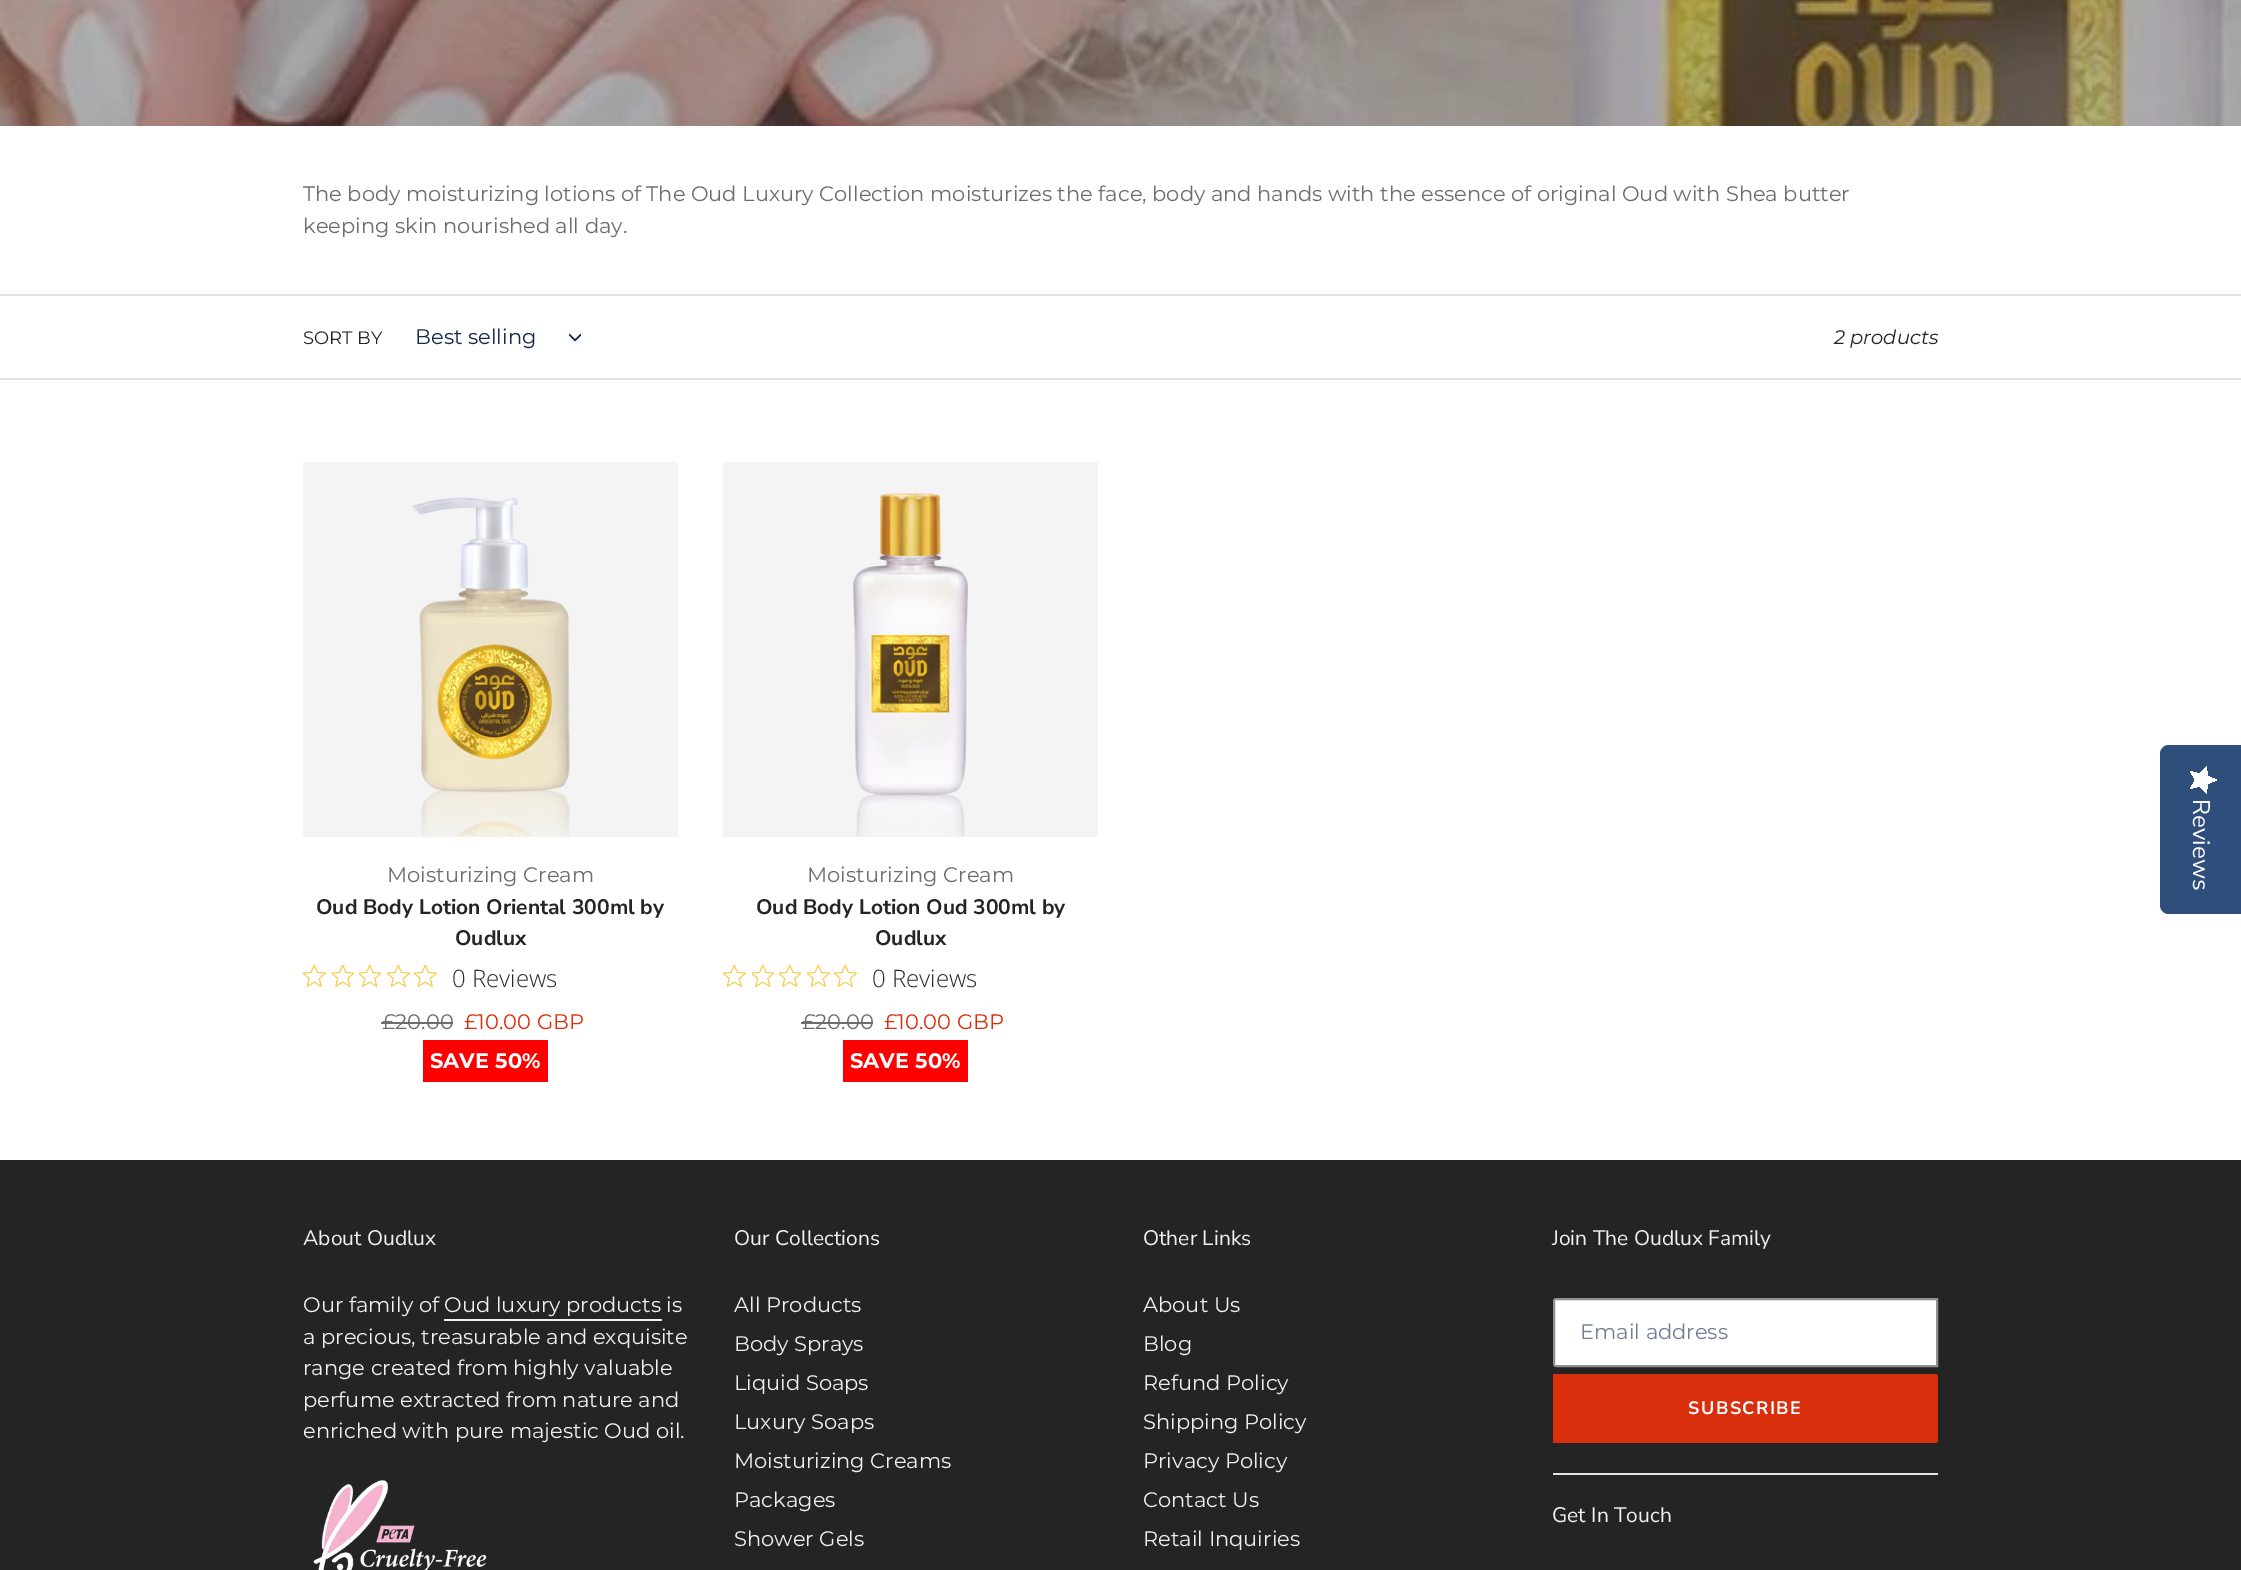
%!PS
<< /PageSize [2241 1570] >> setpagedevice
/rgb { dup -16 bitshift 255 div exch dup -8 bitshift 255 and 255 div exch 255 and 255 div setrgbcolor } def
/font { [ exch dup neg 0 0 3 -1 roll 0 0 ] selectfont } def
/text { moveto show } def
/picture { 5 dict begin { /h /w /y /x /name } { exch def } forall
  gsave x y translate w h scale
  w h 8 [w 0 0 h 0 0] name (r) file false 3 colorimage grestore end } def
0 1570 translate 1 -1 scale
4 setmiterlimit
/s1 { /Montserrat-Regular 21 font 16#6D6D6D rgb } def
/s2 { /Montserrat-Regular 18 font 16#242424 rgb } def
/s3 { /Montserrat-Regular 21 font 16#162950 rgb } def
/s4 { /Montserrat-Italic 19.5 font 16#242424 rgb } def
/s5 { /NunitoSans-Bold 21 font 16#242424 rgb } def
/s6 { /OpenSans-Light 24 font 16#2C2C2C rgb } def
/s7 { /Montserrat-Regular 21 font 16#DA2F0C rgb } def
/s8 { /Montserrat-Bold 21 font 16#FFFFFF rgb } def
/s9 { /NunitoSans-Regular 21 font 16#F0F0F0 rgb } def
/s10 { /Montserrat-Regular 21 font 16#F0F0F0 rgb } def
/s11 { /Montserrat-Regular 21 font 16#737F96 rgb } def
16#FFFFFF rgb
0 0 2241 1570 rectfill
(pic1.raw) 0 0 2241 126 picture
s1
(The body moisturizing lotions of The Oud Luxury Collection moisturizes the face, body and hands with the essence of original Oud with Shea butter) 303 201 text
(keeping skin nourished all day.) 303 233 text
16#E4E4E4 rgb
0 294 2241 2 rectfill
0 378 2241 2 rectfill
s2
(SORT BY) 303 344 text
s3
(Best selling) 415 344 text
(pic2.raw) 569 333 12 9 picture
s4
(2 products) 1834 344 text
16#F4F4F4 rgb
303 462 375 375 rectfill
(pic3.raw) 412 497 158 340 picture
s1
(Moisturizing Cream) 387 882 text
s5
(Oud Body Lotion Oriental 300ml by) 316 914 text
(Oudlux) 455 945 text
(pic4.raw) 303 965 23 22 picture
(pic5.raw) 332 965 22 22 picture
(pic5.raw) 359 965 22 22 picture
(pic4.raw) 387 965 23 22 picture
(pic4.raw) 414 965 23 22 picture
s6
(0 Reviews) 452 987 text
s1
(£20.00) 382 1029 text
381 1022 72 2 rectfill
s7
(£10.00 GBP) 464 1029 text
16#FF0000 rgb
423 1040 125 42 rectfill
s8
(SAVE 50%) 430 1068 text
16#F4F4F4 rgb
723 462 375 375 rectfill
(pic6.raw) 853 493 115 344 picture
s1
(Moisturizing Cream) 807 882 text
s5
(Oud Body Lotion Oud 300ml by) 756 914 text
(Oudlux) 875 945 text
(pic4.raw) 723 965 23 22 picture
(pic5.raw) 752 965 22 22 picture
(pic5.raw) 779 965 22 22 picture
(pic4.raw) 807 965 23 22 picture
(pic4.raw) 834 965 23 22 picture
s6
(0 Reviews) 872 987 text
s1
(£20.00) 802 1029 text
801 1022 72 2 rectfill
s7
(£10.00 GBP) 884 1029 text
16#FF0000 rgb
843 1040 125 42 rectfill
s8
(SAVE 50%) 850 1068 text
16#242424 rgb
0 1160 2241 410 rectfill
s9
(About Oudlux) 303 1245 text
s10
(Our family of Oud luxury products is) 303 1312 text
444 1319 218 2 rectfill
(a precious, treasurable and exquisite) 303 1344 text
(range created from highly valuable) 303 1375 text
(perfume extracted from nature and) 303 1407 text
(enriched with pure majestic Oud oil.) 303 1438 text
(pic7.raw) 313 1480 174 90 picture
s9
(Our Collections) 734 1245 text
s10
(All Products) 734 1312 text
(Body Sprays) 734 1351 text
(Liquid Soaps) 734 1390 text
(Luxury Soaps) 734 1429 text
(Moisturizing Creams) 734 1468 text
(Packages) 734 1507 text
(Shower Gels) 734 1546 text
s9
(Other Links) 1143 1245 text
s10
(About Us) 1143 1312 text
(Blog) 1143 1351 text
(Refund Policy) 1143 1390 text
(Shipping Policy) 1143 1429 text
(Privacy Policy) 1143 1468 text
(Contact Us) 1143 1507 text
(Retail Inquiries) 1143 1546 text
s9
(Join The Oudlux Family) 1552 1245 text
16#FFFFFF rgb
1556 1299 moveto 1937 1299 lineto 1937 1366 lineto 1556 1366 lineto 1555 1366 1554 1365 1554 1364 curveto 1554 1301 lineto 1554 1300 1555 1299 1556 1299 curveto closepath gsave fill grestore
16#909090 rgb
2 setlinewidth
stroke
s11
(Email address) 1580 1339 text
16#DA2F0C rgb
1553 1374 moveto 1935 1374 lineto 1936.5 1374 1938 1375.5 1938 1377 curveto 1938 1440 lineto 1938 1441.5 1936.5 1443 1935 1443 curveto 1553 1443 lineto closepath fill
/NunitoSans-Bold 18 font
16#FFFFFF rgb
1688 1414 moveto 1.5 0 (SUBSCRIBE) ashow
16#E4E4E4 rgb
1553 1473 385 2 rectfill
s9
(Get In Touch) 1552 1522 text
16#2E4F7C rgb
2241 745 moveto 2241 914 lineto 2169 914 lineto 2164 914 2160 910 2160 905 curveto 2160 754 lineto 2160 749 2164 745 2169 745 curveto closepath fill
gsave 2195.5 780 moveto 2190.5 788.5 lineto 2200 786 lineto 2206.5 793.5 lineto 2207.5 784 lineto 2216.5 780 lineto 2207.5 776 lineto 2206.5 766.5 lineto 2200 774 lineto 2190.5 771.5 lineto closepath clip newpath
<< /ShadingType 2 /ColorSpace /DeviceRGB /Coords [2216 766 2216 793] /Extend [true true] /Function << /FunctionType 2 /Domain [0 1] /C0 [1 1 1] /C1 [1 1 1] /N 1 >> >> shfill grestore
/NunitoSans-Regular 24 font
16#FFFFFF rgb
gsave 2193 799 translate 90 rotate 0 0 moveto (Reviews) show grestore
showpage
